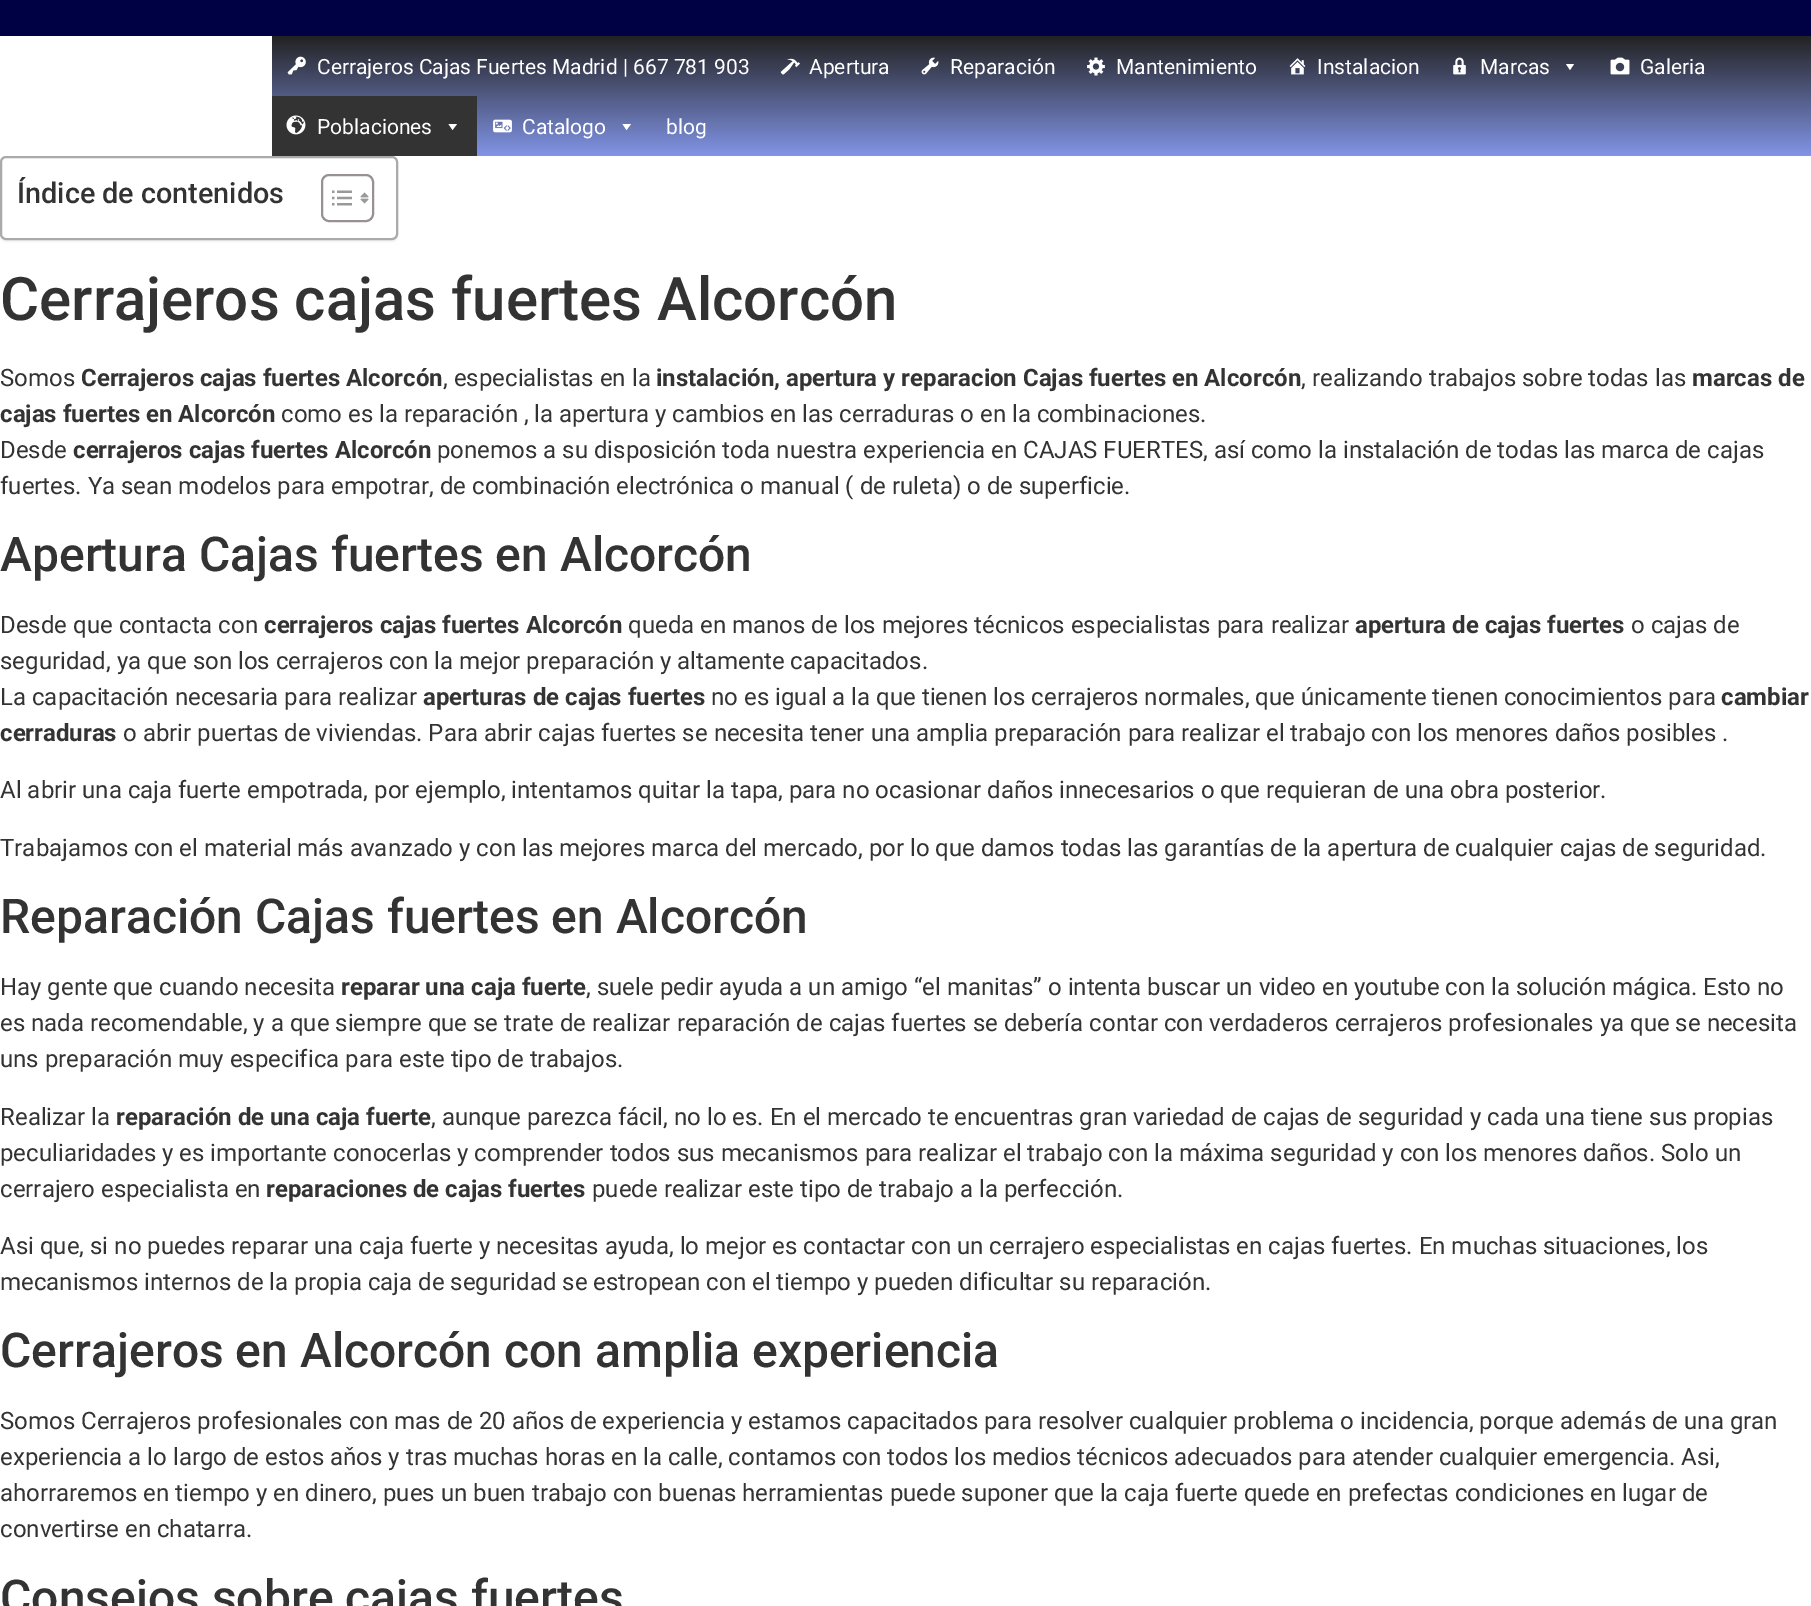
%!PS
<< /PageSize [1811 1606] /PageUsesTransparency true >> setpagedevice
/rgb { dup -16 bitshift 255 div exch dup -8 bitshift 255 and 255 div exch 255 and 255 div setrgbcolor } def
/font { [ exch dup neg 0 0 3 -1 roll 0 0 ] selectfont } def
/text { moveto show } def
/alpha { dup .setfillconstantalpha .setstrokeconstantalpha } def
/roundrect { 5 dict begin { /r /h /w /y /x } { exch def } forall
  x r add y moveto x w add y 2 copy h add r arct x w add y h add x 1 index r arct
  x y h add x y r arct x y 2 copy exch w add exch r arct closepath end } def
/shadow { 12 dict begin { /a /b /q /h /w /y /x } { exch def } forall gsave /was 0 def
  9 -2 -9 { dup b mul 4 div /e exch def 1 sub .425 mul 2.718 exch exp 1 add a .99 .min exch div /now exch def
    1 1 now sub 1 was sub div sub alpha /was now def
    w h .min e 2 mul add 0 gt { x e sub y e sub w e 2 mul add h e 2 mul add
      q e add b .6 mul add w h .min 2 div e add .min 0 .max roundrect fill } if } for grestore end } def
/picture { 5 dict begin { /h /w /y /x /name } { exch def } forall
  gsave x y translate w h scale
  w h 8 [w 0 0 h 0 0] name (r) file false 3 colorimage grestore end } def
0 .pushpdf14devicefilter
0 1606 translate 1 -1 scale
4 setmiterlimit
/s1 { /Roboto-Regular 21 font 16#FFFFFF rgb } def
/s2 { /Roboto-Medium 28.75 font 16#333333 rgb } def
/s3 { /Roboto-Medium 60 font 16#333333 rgb } def
/s4 { /Roboto-Regular 24 font 16#333333 rgb } def
/s5 { /Roboto-Bold 24 font 16#333333 rgb } def
/s6 { /Roboto-Medium 48 font 16#333333 rgb } def
16#FFFFFF rgb
0 0 1811 1606 rectfill
16#000044 rgb
0 0 1811 36 rectfill
gsave 272 36 moveto 1811 36 lineto 1811 156 lineto 272 156 lineto closepath clip newpath
<< /ShadingType 2 /ColorSpace /DeviceRGB /Coords [1042 36 1042 156] /Extend [true true] /Function << /FunctionType 2 /Domain [0 1] /C0 [0.133 0.133 0.133] /C1 [0.506 0.58 0.902] /N 1 >> >> shfill grestore
(pic1.raw) 287 56 19 19 picture
s1
(Cerrajeros Cajas Fuertes Madrid | 667 781 903) 317 74 text
(pic2.raw) 780 58 20 17 picture
(Apertura) 809 74 text
(pic3.raw) 921 57 18 18 picture
(Reparación) 950 74 text
(pic4.raw) 1087 57 18 19 picture
(Mantenimiento) 1116 74 text
(pic5.raw) 1289 58 17 17 picture
(Instalacion) 1317 74 text
(pic6.raw) 1453 57 13 18 picture
(Marcas) 1480 74 text
1574 64 moveto 1570 70 lineto 1566 64 lineto closepath fill
(pic7.raw) 1610 57 20 18 picture
(Galeria) 1640 74 text
16#333333 rgb
272 96 205 60 rectfill
(pic8.raw) 286 115 20 20 picture
s1
(Poblaciones) 317 134 text
457 124 moveto 452.5 130 lineto 448.5 124 lineto closepath fill
(pic9.raw) 493 119 19 14 picture
(Catalogo) 522 134 text
631 124 moveto 626.5 130 lineto 622.5 124 lineto closepath fill
(blog) 666 134 text
gsave
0 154 moveto 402 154 lineto 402 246 lineto 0 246 lineto closepath 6 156 moveto 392 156 lineto 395.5 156 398 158.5 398 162 curveto 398 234 lineto 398 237.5 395.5 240 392 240 curveto 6 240 lineto 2.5 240 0 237.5 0 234 curveto 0 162 lineto 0 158.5 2.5 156 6 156 curveto closepath eoclip newpath
16#000000 rgb
0 158 398 84 6 1 0.05 shadow
grestore
16#AAAAAA rgb
2 setlinewidth
1 157 396 82 5 roundrect stroke
s2
(Índice de contenidos) 17 203 text
16#999191 rgb
322 175 51 46 7 roundrect stroke
(pic10.raw) 332 190 20 16 picture
(pic11.raw) 360 192 9 12 picture
s3
(Cerrajeros cajas fuertes Alcorcón) 0 320 text
s4
(Somos) 0 386 text
s5
(Cerrajeros cajas fuertes Alcorcón) 81 386 text
s4
(, especialistas en la) 443 386 text
s5
(instalación, apertura y reparacion Cajas fuertes en Alcorcón) 656 386 text
s4
(, realizando trabajos sobre todas las) 1301 386 text
s5
(marcas de) 1692 386 text
(cajas fuertes en Alcorcón) 0 422 text
s4
(como es la reparación , la apertura y cambios en las cerraduras o en la combinaciones.) 281 422 text
(Desde) 0 458 text
s5
(cerrajeros cajas fuertes Alcorcón) 73 458 text
s4
(ponemos a su disposición toda nuestra experiencia en CAJAS FUERTES, así como la instalación de todas las marca de cajas) 437 458 text
(fuertes. Ya sean modelos para empotrar, de combinación electrónica o manual \( de ruleta\) o de superficie.) 0 494 text
s6
(Apertura Cajas fuertes en Alcorcón) 0 571 text
s4
(Desde que contacta con) 0 633 text
s5
(cerrajeros cajas fuertes Alcorcón) 264 633 text
s4
(queda en manos de los mejores técnicos especialistas para realizar) 628 633 text
s5
(apertura de cajas fuertes) 1355 633 text
s4
(o cajas de) 1631 633 text
(seguridad, ya que son los cerrajeros con la mejor preparación y altamente capacitados.) 0 669 text
(La capacitación necesaria para realizar) 0 705 text
s5
(aperturas de cajas fuertes) 423 705 text
s4
(no es igual a la que tienen los cerrajeros normales, que únicamente tienen conocimientos para) 711 705 text
s5
(cambiar) 1721 705 text
(cerraduras) 0 741 text
s4
(o abrir puertas de viviendas. Para abrir cajas fuertes se necesita tener una amplia preparación para realizar el trabajo con los menores daños posibles .) 123 741 text
(Al abrir una caja fuerte empotrada, por ejemplo, intentamos quitar la tapa, para no ocasionar daños innecesarios o que requieran de una obra posterior.) 0 798 text
(Trabajamos con el material más avanzado y con las mejores marca del mercado, por lo que damos todas las garantías de la apertura de cualquier cajas de seguridad.) 0 856 text
s6
(Reparación Cajas fuertes en Alcorcón) 0 933 text
s4
(Hay gente que cuando necesita) 0 995 text
s5
(reparar una caja fuerte) 341 995 text
s4
(, suele pedir ayuda a un amigo “el manitas” o intenta buscar un video en youtube con la solución mágica. Esto no) 586 995 text
(es nada recomendable, y a que siempre que se trate de realizar reparación de cajas fuertes se debería contar con verdaderos cerrajeros profesionales ya que se necesita) 0 1031 text
(uns preparación muy especifica para este tipo de trabajos.) 0 1067 text
(Realizar la) 0 1125 text
s5
(reparación de una caja fuerte) 116 1125 text
s4
(, aunque parezca fácil, no lo es. En el mercado te encuentras gran variedad de cajas de seguridad y cada una tiene sus propias) 431 1125 text
(peculiaridades y es importante conocerlas y comprender todos sus mecanismos para realizar el trabajo con la máxima seguridad y con los menores daños. Solo un) 0 1161 text
(cerrajero especialista en) 0 1197 text
s5
(reparaciones de cajas fuertes) 266 1197 text
s4
(puede realizar este tipo de trabajo a la perfección.) 592 1197 text
(Asi que, si no puedes reparar una caja fuerte y necesitas ayuda, lo mejor es contactar con un cerrajero especialistas en cajas fuertes. En muchas situaciones, los) 0 1254 text
(mecanismos internos de la propia caja de seguridad se estropean con el tiempo y pueden dificultar su reparación.) 0 1290 text
s6
(Cerrajeros en Alcorcón con amplia experiencia) 0 1367 text
s4
(Somos Cerrajeros profesionales con mas de 20 años de experiencia y estamos capacitados para resolver cualquier problema o incidencia, porque además de una gran) 0 1429 text
(experiencia a lo largo de estos aňos y tras muchas horas en la calle, contamos con todos los medios técnicos adecuados para atender cualquier emergencia. Asi,) 0 1465 text
(ahorraremos en tiempo y en dinero, pues un buen trabajo con buenas herramientas puede suponer que la caja fuerte quede en prefectas condiciones en lugar de) 0 1501 text
(convertirse en chatarra.) 0 1537 text
s6
(Consejos sobre cajas fuertes) 0 1614 text
.poppdf14devicefilter showpage
